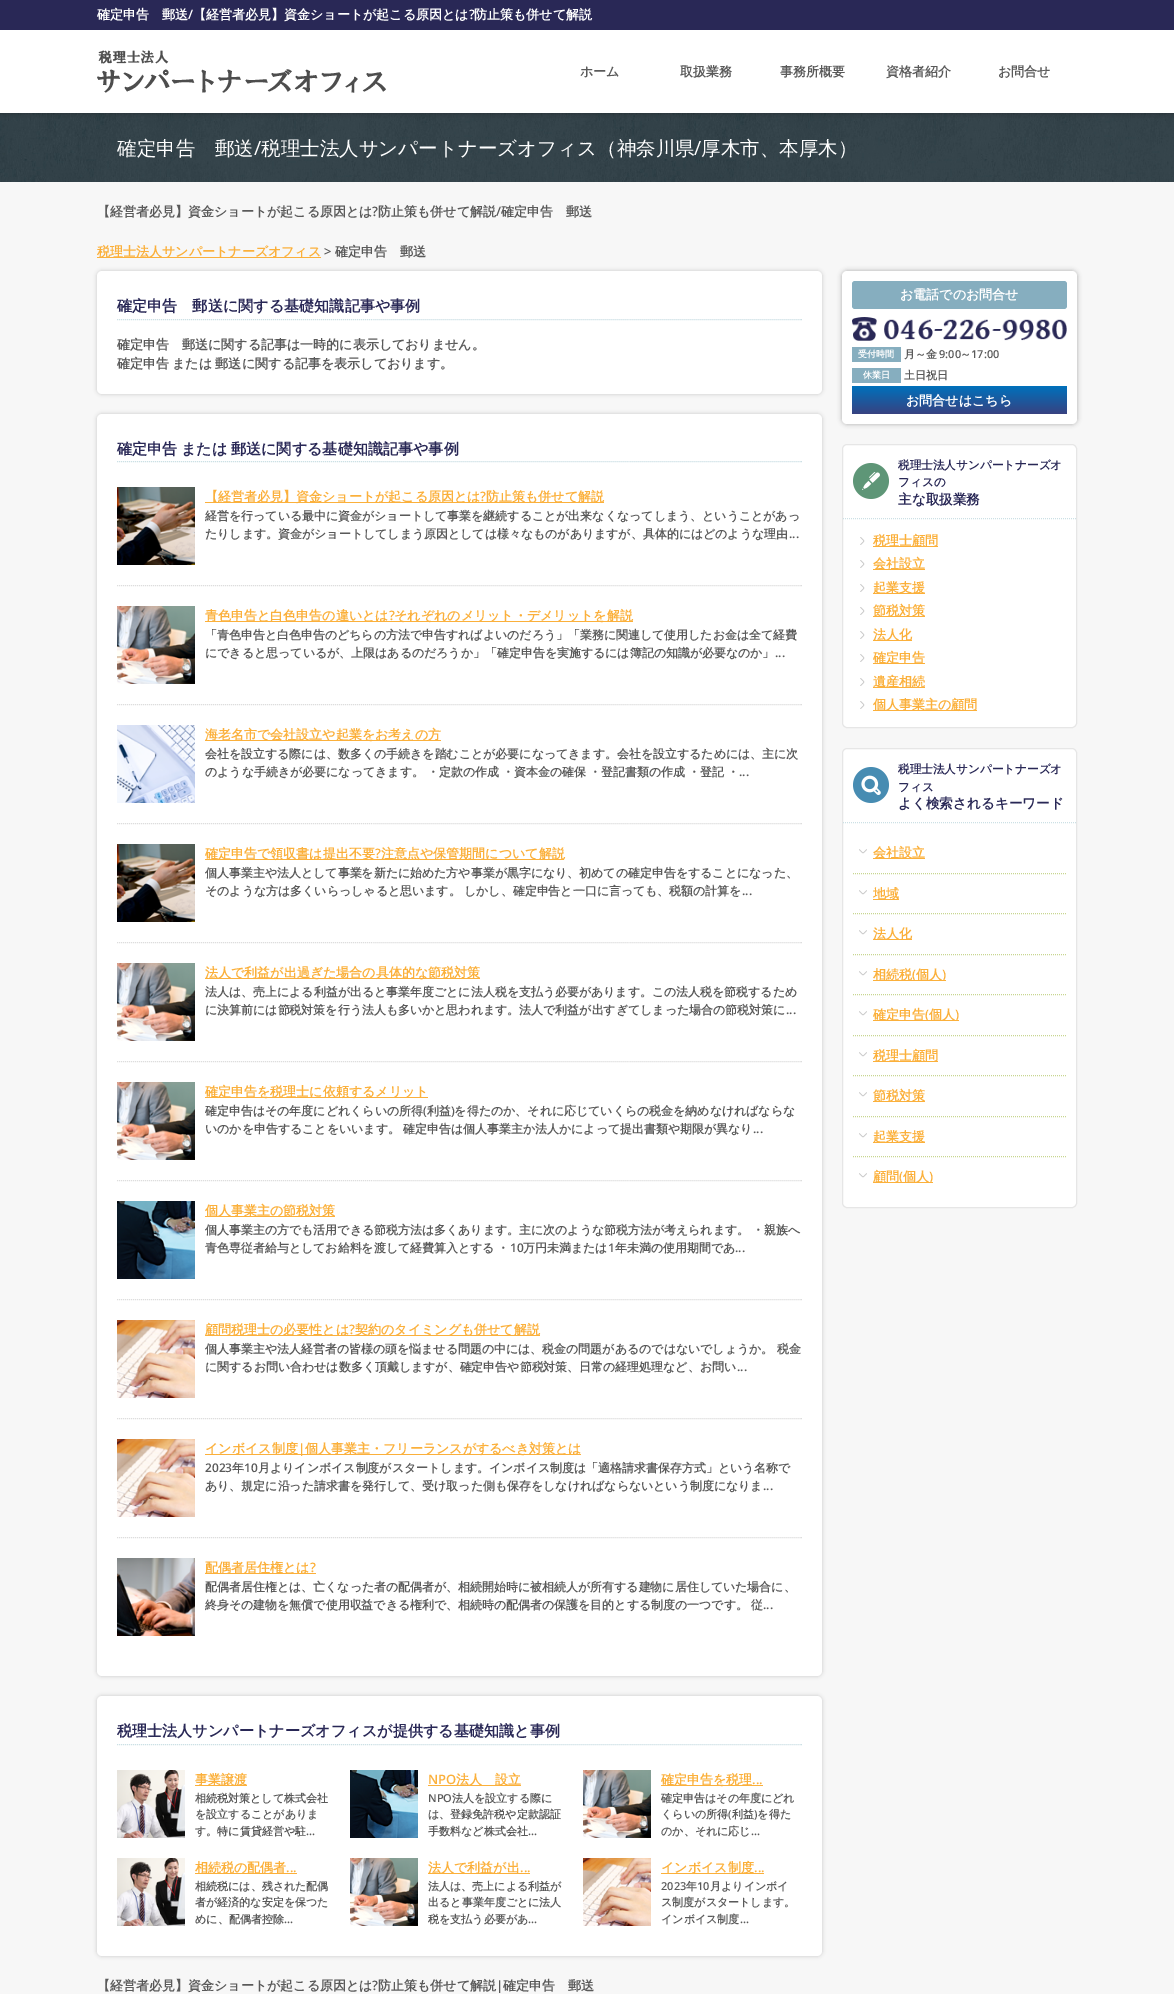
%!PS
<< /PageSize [1174 1994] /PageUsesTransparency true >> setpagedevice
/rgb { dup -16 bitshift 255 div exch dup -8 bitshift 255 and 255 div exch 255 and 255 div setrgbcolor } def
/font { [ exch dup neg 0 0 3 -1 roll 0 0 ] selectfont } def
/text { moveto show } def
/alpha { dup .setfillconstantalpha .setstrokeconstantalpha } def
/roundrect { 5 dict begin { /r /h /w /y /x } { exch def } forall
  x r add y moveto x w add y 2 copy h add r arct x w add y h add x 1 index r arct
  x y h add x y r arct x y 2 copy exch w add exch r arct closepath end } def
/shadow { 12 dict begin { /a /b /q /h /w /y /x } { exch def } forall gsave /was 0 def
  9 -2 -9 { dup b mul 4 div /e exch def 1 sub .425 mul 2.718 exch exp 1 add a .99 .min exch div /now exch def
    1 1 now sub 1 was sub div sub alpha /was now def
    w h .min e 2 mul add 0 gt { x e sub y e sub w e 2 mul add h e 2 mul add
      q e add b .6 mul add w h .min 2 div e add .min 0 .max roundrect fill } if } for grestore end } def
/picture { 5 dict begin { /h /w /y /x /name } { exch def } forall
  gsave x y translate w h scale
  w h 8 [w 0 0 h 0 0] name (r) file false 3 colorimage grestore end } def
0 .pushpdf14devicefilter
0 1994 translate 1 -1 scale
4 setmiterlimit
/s1 { /WenQuanYiZenHei-Bold 13 font 16#FFFFFF rgb } def
/s2 { /OpenSans-SemiBold 13 font 16#FFFFFF rgb } def
/s3 { /WenQuanYiZenHei-Bold 13 font 16#5A5A5A rgb } def
/s4 { /WenQuanYiZenHei-Medium 19.5 font 16#FFFFFF rgb } def
/s5 { /OpenSans-Regular 19.5 font 16#FFFFFF rgb } def
/s6 { /OpenSans-SemiBold 13 font 16#5A5A5A rgb } def
/s7 { /WenQuanYiZenHei-Bold 13 font 16#FBB03B rgb } def
/s8 { /WenQuanYiZenHei-Bold 15.1 font 16#292856 rgb } def
/s9 { /OpenSans-SemiBold 13 font 16#FBB03B rgb } def
/s10 { /WenQuanYiZenHei-Bold 11.95 font 16#5A5A5A rgb } def
/s11 { /OpenSans-SemiBold 11.95 font 16#5A5A5A rgb } def
/s12 { /WenQuanYiZenHei-Bold 11 font 16#5A5A5A rgb } def
/s13 { /OpenSans-SemiBold 11 font 16#5A5A5A rgb } def
/s14 { /WenQuanYiZenHei-Bold 9 font 16#FFFFFF rgb } def
/s15 { /WenQuanYiZenHei-Bold 11.6 font 16#292856 rgb } def
/s16 { /WenQuanYiZenHei-Bold 13.6 font 16#292856 rgb } def
16#F7F7F7 rgb
0 0 1174 1994 rectfill
(pic2.raw) 0 113 1174 69 picture
16#000000 rgb
0 0 1174 113 0 2.5 0.3 shadow
16#FFFFFF rgb
0 30 1174 83 rectfill
16#292856 rgb
0 0 1174 30 rectfill
s1
(確定申告　郵送) 97 19 text
s2
(/) 188 19 text
s1
(【経営者必見】資金ショートが起こる原因とは) 193 19 text
s2
(?) 469 19 text
s1
(防止策も併せて解説) 474 19 text
(pic1.raw) 97 50 289 43 picture
s3
(ホーム) 580 76 text
(取扱業務) 680 76 text
(事務所概要) 780 76 text
(資格者紹介) 886 76 text
(お問合せ) 998 76 text
s4
(確定申告　郵送) 117 155 text
s5
(/) 254 155 text
s4
(税理士法人サンパートナーズオフィス（神奈川県) 261 155 text
s5
(/) 694 155 text
s4
(厚木市、本厚木）) 701 155 text
s3
(【経営者必見】資金ショートが起こる原因とは) 97 216 text
s6
(?) 372 216 text
s3
(防止策も併せて解説) 378 216 text
s6
(/) 496 216 text
s3
(確定申告　郵送) 501 216 text
16#FBB03B rgb
97 257 224 1 rectfill
(税理士法人サンパートナーズオフィス) 97 256 text
s6
(>) 324 256 text
s3
(確定申告　郵送) 335 256 text
16#000000 rgb
97 271 725 123 5 2 0.2 shadow
16#FFFFFF rgb
97 271 725 123 5 roundrect fill
16#CCE0E5 rgb
[1 1] 0 setdash
117 319.5 moveto 802 319.5 lineto stroke
s8
(確定申告　郵送に関する基礎知識記事や事例) 117 311 text
s3
(確定申告　郵送に関する記事は一時的に表示しておりません。) 117 349 text
117 368 moveto -1 0 32 (確定申告 または 郵送) widthshow
(に関する記事を表示しております。) 242 368 text
16#000000 rgb
97 414 725 1262 5 2 0.2 shadow
16#FFFFFF rgb
97 414 725 1262 5 roundrect fill
16#CCE0E5 rgb
117 461.5 moveto 802 461.5 lineto stroke
/WenQuanYiZenHei-Bold 15.1 font
16#292856 rgb
117 454 moveto -1 0 32 (確定申告 または 郵送に関する基礎知識記事や事例) widthshow
(pic3.raw) 117 487 78 78 picture
16#FBB03B rgb
205 502 399 1 rectfill
s7
(【経営者必見】資金ショートが起こる原因とは) 205 501 text
s9
(?) 480 501 text
s7
(防止策も併せて解説) 486 501 text
s10
(経営を行っている最中に資金がショートして事業を継続することが出来なくなってしまう、ということがあっ) 205 520 text
(たりします。資金がショートしてしまう原因としては様々なものがありますが、具体的にはどのような理由) 205 538 text
s11
(...) 789 538 text
16#DDDDDD rgb
117 585.5 moveto 802 585.5 lineto stroke
(pic4.raw) 117 606 78 78 picture
16#FBB03B rgb
205 621 428 1 rectfill
s7
(青色申告と白色申告の違いとは) 205 620 text
s9
(?) 389 620 text
s7
(それぞれのメリット・デメリットを解説) 394 620 text
s10
(「青色申告と白色申告のどちらの方法で申告すればよいのだろう」「業務に関連して使用したお金は全て経費) 205 639 text
(にできると思っているが、上限はあるのだろうか」「確定申告を実施するには簿記の知識が必要なのか」) 205 657 text
s11
(...) 775 657 text
16#DDDDDD rgb
117 704.5 moveto 802 704.5 lineto stroke
(pic5.raw) 117 725 78 78 picture
16#FBB03B rgb
205 740 236 1 rectfill
s7
(海老名市で会社設立や起業をお考えの方) 205 739 text
s10
(会社を設立する際には、数多くの手続きを踏むことが必要になってきます。会社を設立するためには、主に次) 205 758 text
205 776 moveto -0.5 0 32 (のような手続きが必要になってきます。 ・定款の作成 ・資本金の確保 ・登記書類の作成 ・登記 ・) widthshow
s11
(...) 739 776 text
16#DDDDDD rgb
117 823.5 moveto 802 823.5 lineto stroke
(pic3.raw) 117 844 78 78 picture
16#FBB03B rgb
205 859 359 1 rectfill
s7
(確定申告で領収書は提出不要) 205 858 text
s9
(?) 375 858 text
s7
(注意点や保管期間について解説) 381 858 text
s10
(個人事業主や法人として事業を新たに始めた方や事業が黒字になり、初めての確定申告をすることになった、) 205 877 text
(そのような方は多くいらっしゃると思います。) 205 895 text
(しかし、確定申告と一口に言っても、税額の計算を) 464 895 text
s11
(...) 742 895 text
16#DDDDDD rgb
117 942.5 moveto 802 942.5 lineto stroke
(pic6.raw) 117 963 78 78 picture
16#FBB03B rgb
205 978 275 1 rectfill
s7
(法人で利益が出過ぎた場合の具体的な節税対策) 205 977 text
s10
(法人は、売上による利益が出ると事業年度ごとに法人税を支払う必要があります。この法人税を節税するため) 205 996 text
(に決算前には節税対策を行う法人も多いかと思われます。法人で利益が出すぎてしまった場合の節税対策に) 205 1014 text
s11
(...) 786 1014 text
16#DDDDDD rgb
117 1061.5 moveto 802 1061.5 lineto stroke
(pic7.raw) 117 1082 78 78 picture
16#FBB03B rgb
205 1097 223 1 rectfill
s7
(確定申告を税理士に依頼するメリット) 205 1096 text
s10
(確定申告はその年度にどれくらいの所得) 205 1115 text
s11
(\() 423 1115 text
s10
(利益 を得たのか、それに応じていくらの税金を納めなければならな) 427 1115 text
s11
(\)) 451 1115 text
s10
(いのかを申告することをいいます。) 205 1133 text
(確定申告は個人事業主か法人かによって提出書類や期限が異なり) 403 1133 text
s11
(...) 753 1133 text
16#DDDDDD rgb
117 1180.5 moveto 802 1180.5 lineto stroke
(pic8.raw) 117 1201 78 78 picture
16#FBB03B rgb
205 1216 130 1 rectfill
s7
(個人事業主の節税対策) 205 1215 text
s10
(個人事業主の方でも活用できる節税方法は多くあります。主に次のような節税方法が考えられます。) 205 1234 text
(・親族へ) 752 1234 text
205 1252 moveto -1 0 32 (青色専従者給与としてお給料を渡して経費算入とする ・) widthshow
s11
(10) 510 1252 text
s10
(万円未満または) 523 1252 text
s11
(1) 608 1252 text
s10
(年未満の使用期間であ) 615 1252 text
s11
(...) 735 1252 text
16#DDDDDD rgb
117 1299.5 moveto 802 1299.5 lineto stroke
(pic9.raw) 117 1320 78 78 picture
16#FBB03B rgb
205 1335 335 1 rectfill
s7
(顧問税理士の必要性とは) 205 1334 text
s9
(?) 349 1334 text
s7
(契約のタイミングも併せて解説) 355 1334 text
s10
(個人事業主や法人経営者の皆様の頭を悩ませる問題の中には、税金の問題があるのではないでしょうか。) 205 1353 text
(税金) 777 1353 text
(に関するお問い合わせは数多く頂戴しますが、確定申告や節税対策、日常の経理処理など、お問い) 205 1371 text
s11
(...) 737 1371 text
16#DDDDDD rgb
117 1418.5 moveto 802 1418.5 lineto stroke
(pic9.raw) 117 1439 78 78 picture
16#FBB03B rgb
205 1454 376 1 rectfill
s7
(インボイス制度) 205 1453 text
s9
(|) 298 1453 text
s7
(個人事業主・フリーランスがするべき対策とは) 305 1453 text
s11
(2023) 205 1472 text
s10
(年) 232 1472 text
s11
(10) 244 1472 text
s10
(月よりインボイス制度がスタートします。インボイス制度は「適格請求書保存方式」という名称で) 258 1472 text
(あり、規定に沿った請求書を発行して、受け取った側も保存をしなければならないという制度になりま) 205 1490 text
s11
(...) 763 1490 text
16#DDDDDD rgb
117 1537.5 moveto 802 1537.5 lineto stroke
(pic10.raw) 117 1558 78 78 picture
16#FBB03B rgb
205 1573 111 1 rectfill
s7
(配偶者居住権とは) 205 1572 text
s9
(?) 310 1572 text
s10
(配偶者居住権とは、亡くなった者の配偶者が、相続開始時に被相続人が所有する建物に居住していた場合に、) 205 1591 text
(終身その建物を無償で使用収益できる権利で、相続時の配偶者の保護を目的とする制度の一つです。) 205 1609 text
(従) 751 1609 text
s11
(...) 763 1609 text
16#000000 rgb
97 1696 725 260 5 2 0.2 shadow
16#FFFFFF rgb
97 1696 725 260 5 roundrect fill
16#CCE0E5 rgb
117 1744.5 moveto 802 1744.5 lineto stroke
s8
(税理士法人サンパートナーズオフィスが提供する基礎知識と事例) 117 1736 text
(pic11.raw) 117 1770 68 68 picture
16#FBB03B rgb
195 1785 52 1 rectfill
s7
(事業譲渡) 195 1784 text
s12
(相続税対策として株式会社) 195 1802 text
(を設立することがありま) 195 1818 text
(す。特に賃貸経営や駐) 195 1835 text
s13
(...) 306 1835 text
(pic12.raw) 350 1770 68 68 picture
s9
(NPO) 428 1784 text
428 1785 93 1 rectfill
s7
(法人　設立) 456 1784 text
s13
(NPO) 428 1802 text
s12
(法人を設立する際に) 452 1802 text
(は、登録免許税や定款認証) 428 1818 text
(手数料など株式会社) 428 1835 text
s13
(...) 528 1835 text
(pic13.raw) 583 1770 68 68 picture
16#FBB03B rgb
661 1785 102 1 rectfill
s7
(確定申告を税理) 661 1784 text
s9
(...) 752 1784 text
s12
(確定申告はその年度にどれ) 661 1802 text
(くらいの所得) 661 1818 text
s13
(\() 728 1818 text
s12
(利益 を得た) 732 1818 text
s13
(\)) 754 1818 text
s12
(のか、それに応じ) 661 1835 text
s13
(...) 751 1835 text
(pic11.raw) 117 1858 68 68 picture
16#FBB03B rgb
195 1873 102 1 rectfill
s7
(相続税の配偶者) 195 1872 text
s9
(...) 286 1872 text
s12
(相続税には、残された配偶) 195 1890 text
(者が経済的な安定を保つた) 195 1906 text
(めに、配偶者控除) 195 1923 text
s13
(...) 284 1923 text
(pic14.raw) 350 1858 68 68 picture
16#FBB03B rgb
428 1873 102 1 rectfill
s7
(法人で利益が出) 428 1872 text
s9
(...) 520 1872 text
s12
(法人は、売上による利益が) 428 1890 text
(出ると事業年度ごとに法人) 428 1906 text
(税を支払う必要があ) 428 1923 text
s13
(...) 528 1923 text
(pic15.raw) 583 1858 68 68 picture
16#FBB03B rgb
661 1873 103 1 rectfill
s7
(インボイス制度) 661 1872 text
s9
(...) 754 1872 text
s13
(2023) 661 1890 text
s12
(年) 686 1890 text
s13
(10) 697 1890 text
s12
(月よりインボイ) 710 1890 text
(ス制度がスタートします。) 661 1906 text
(インボイス制度) 661 1923 text
s13
(...) 740 1923 text
16#000000 rgb
842 271 235 153 5 2.5 0.3 shadow
16#FFFFFF rgb
842 271 235 153 5 roundrect fill
16#86AEBF rgb
852 281 215 28 3 roundrect fill
s1
(お電話でのお問合せ) 900 299 text
(pic16.raw) 852 317 215 24 picture
16#86AEBF rgb
852 347 49 15 rectfill
s14
(受付時間) 858 357 text
s12
(月～金) 904 358 text
s13
(9:00) 939 358 text
s12
(～) 960 358 text
s13
(17:00) 971 358 text
16#86AEBF rgb
852 368 49 15 rectfill
s14
(休業日) 863 378 text
s12
(土日祝日) 904 379 text
gsave 852 386 215 28 3 roundrect clip newpath
<< /ShadingType 2 /ColorSpace /DeviceRGB /Coords [960 386 960 414] /Extend [true true] /Function << /FunctionType 2 /Domain [0 1] /C0 [0 0.443 0.737] /C1 [0.216 0.259 0.506] /N 1 >> >> shfill grestore
s1
(お問合せはこちら) 906 405 text
842.5 444.5 234 283 4.5 roundrect gsave fill grestore
16#E6E6E6 rgb
[] 0 setdash
stroke
(pic17.raw) 853 463 36 36 picture
s15
(税理士法人サンパートナーズオ) 898 469 text
(フィスの) 898 486 text
s16
(主な取扱業務) 898 504 text
16#CCE0E5 rgb
[1 1] 0 setdash
843 518.5 moveto 1076 518.5 lineto stroke
(pic18.raw) 860 537 5 8 picture
16#FBB03B rgb
873 546 65 1 rectfill
s7
(税理士顧問) 873 545 text
(pic18.raw) 860 560 5 8 picture
873 569 52 1 rectfill
(会社設立) 873 568 text
(pic18.raw) 860 584 5 8 picture
873 593 52 1 rectfill
(起業支援) 873 592 text
(pic18.raw) 860 607 5 8 picture
873 616 52 1 rectfill
(節税対策) 873 615 text
(pic18.raw) 860 631 5 8 picture
873 640 39 1 rectfill
(法人化) 873 639 text
(pic18.raw) 860 654 5 8 picture
873 663 52 1 rectfill
(確定申告) 873 662 text
(pic18.raw) 860 678 5 8 picture
873 687 52 1 rectfill
(遺産相続) 873 686 text
(pic18.raw) 860 701 5 8 picture
873 710 104 1 rectfill
(個人事業主の顧問) 873 709 text
16#FFFFFF rgb
842.5 748.5 234 459 4.5 roundrect gsave fill grestore
16#E6E6E6 rgb
[] 0 setdash
stroke
(pic19.raw) 853 767 36 36 picture
s15
(税理士法人サンパートナーズオ) 898 773 text
(フィス) 898 791 text
s16
(よく検索されるキーワード) 898 808 text
16#CCE0E5 rgb
[1 1] 0 setdash
843 822.5 moveto 1076 822.5 lineto stroke
(pic20.raw) 859 849 8 5 picture
16#FBB03B rgb
873 858 52 1 rectfill
s7
(会社設立) 873 857 text
(pic20.raw) 859 890 8 5 picture
16#C8D691 rgb
853 873.5 moveto 1066 873.5 lineto stroke
16#FBB03B rgb
873 899 26 1 rectfill
(地域) 873 898 text
(pic20.raw) 859 930 8 5 picture
16#C8D691 rgb
853 913.5 moveto 1066 913.5 lineto stroke
16#FBB03B rgb
873 939 39 1 rectfill
(法人化) 873 938 text
(pic20.raw) 859 971 8 5 picture
16#C8D691 rgb
853 954.5 moveto 1066 954.5 lineto stroke
16#FBB03B rgb
873 980 73 1 rectfill
(相続税) 873 979 text
s9
(\() 912 979 text
s7
(個人) 916 979 text
s9
(\)) 942 979 text
(pic20.raw) 859 1011 8 5 picture
16#C8D691 rgb
853 994.5 moveto 1066 994.5 lineto stroke
16#FBB03B rgb
873 1020 86 1 rectfill
s7
(確定申告) 873 1019 text
s9
(\() 925 1019 text
s7
(個人) 929 1019 text
s9
(\)) 955 1019 text
(pic20.raw) 859 1052 8 5 picture
16#C8D691 rgb
853 1035.5 moveto 1066 1035.5 lineto stroke
16#FBB03B rgb
873 1061 65 1 rectfill
s7
(税理士顧問) 873 1060 text
(pic20.raw) 859 1092 8 5 picture
16#C8D691 rgb
853 1075.5 moveto 1066 1075.5 lineto stroke
16#FBB03B rgb
873 1101 52 1 rectfill
(節税対策) 873 1100 text
(pic20.raw) 859 1133 8 5 picture
16#C8D691 rgb
853 1116.5 moveto 1066 1116.5 lineto stroke
16#FBB03B rgb
873 1142 52 1 rectfill
(起業支援) 873 1141 text
(pic20.raw) 859 1173 8 5 picture
16#C8D691 rgb
853 1156.5 moveto 1066 1156.5 lineto stroke
16#FBB03B rgb
873 1182 60 1 rectfill
(顧問) 873 1181 text
s9
(\() 899 1181 text
s7
(個人) 903 1181 text
s9
(\)) 929 1181 text
s3
(【経営者必見】資金ショートが起こる原因とは) 97 1990 text
s6
(?) 372 1990 text
s3
(防止策も併せて解説) 378 1990 text
s6
(|) 496 1990 text
s3
(確定申告　郵送) 503 1990 text
.poppdf14devicefilter showpage
